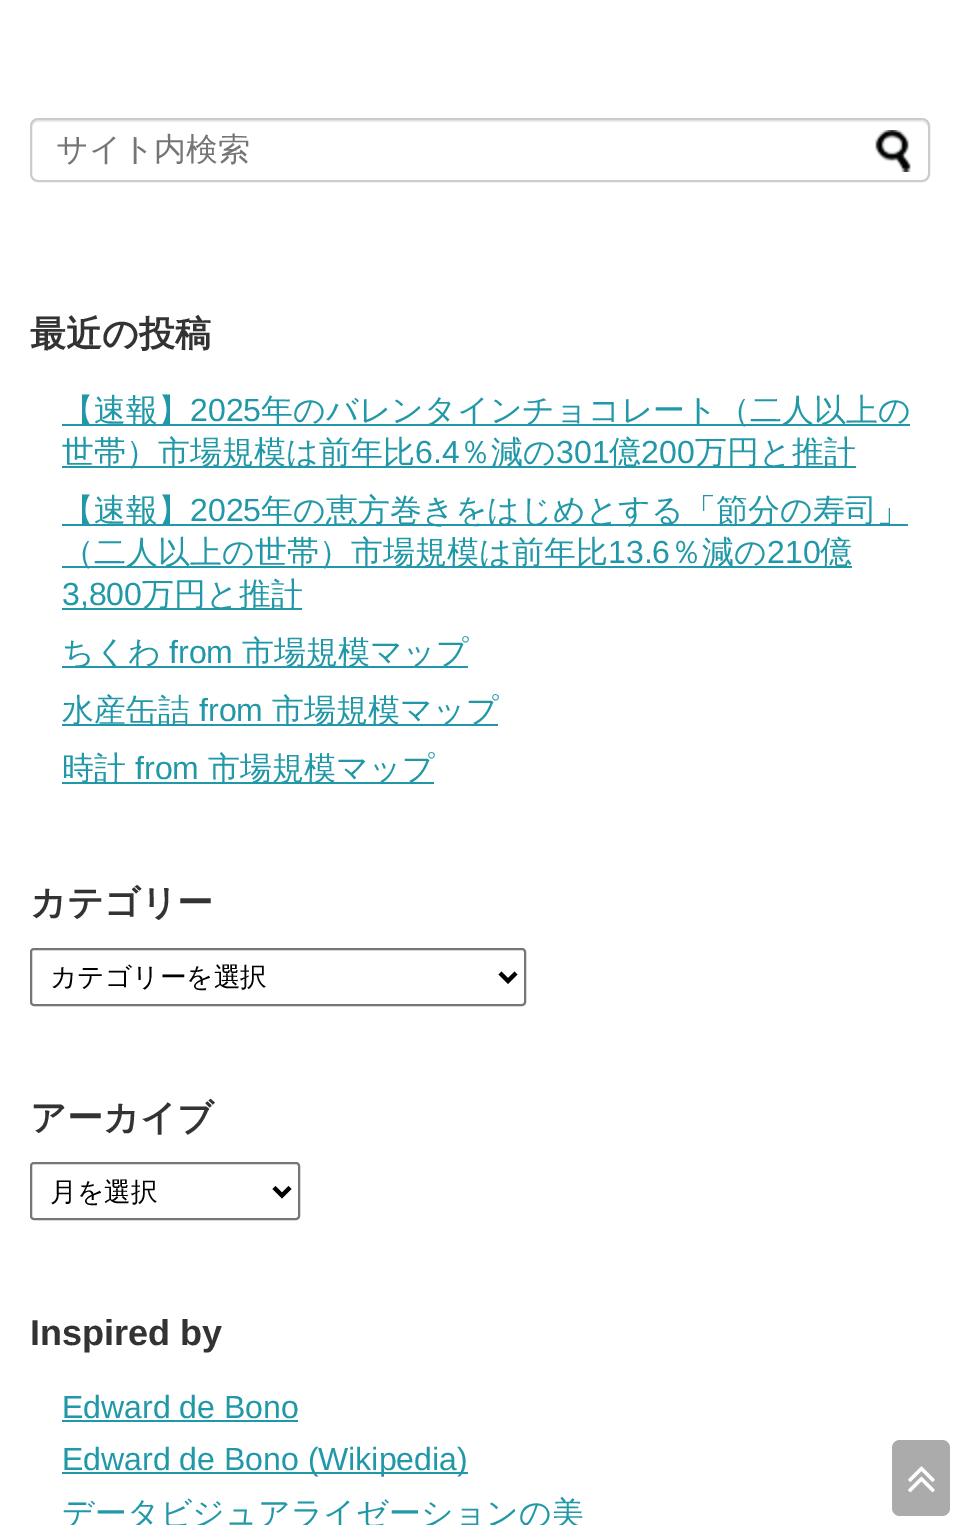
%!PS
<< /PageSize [959 1525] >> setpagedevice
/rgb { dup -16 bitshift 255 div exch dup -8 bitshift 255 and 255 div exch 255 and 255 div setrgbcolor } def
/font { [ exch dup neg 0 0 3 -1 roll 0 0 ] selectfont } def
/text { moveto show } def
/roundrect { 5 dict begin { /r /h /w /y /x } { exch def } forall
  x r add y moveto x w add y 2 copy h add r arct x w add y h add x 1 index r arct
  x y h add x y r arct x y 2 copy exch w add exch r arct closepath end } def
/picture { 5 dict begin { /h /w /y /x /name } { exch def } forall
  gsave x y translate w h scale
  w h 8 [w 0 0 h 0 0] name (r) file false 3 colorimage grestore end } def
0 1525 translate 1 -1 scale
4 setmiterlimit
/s1 { /WenQuanYiZenHei-Medium 32 font 16#757575 rgb } def
/s2 { /WenQuanYiZenHei-Bold 36 font 16#333333 rgb } def
/s3 { /WenQuanYiZenHei-Medium 32 font 16#2098A8 rgb } def
/s4 { /LiberationSans-Regular 32 font 16#2098A8 rgb } def
/s5 { /WenQuanYiZenHei-Medium 26.75 font 16#000000 rgb } def
/s6 { /LiberationSans-Bold 36 font 16#333333 rgb } def
16#FFFFFF rgb
0 0 959 1525 rectfill
16#ECECEC rgb
38 122 moveto 922 122 lineto 925 122 928 125 928 128 curveto 928 126 lineto 928 123 925 120 922 120 curveto 38 120 lineto 35 120 32 123 32 126 curveto 32 128 lineto 32 125 35 122 38 122 curveto closepath fill
16#CCCCCC rgb
2 setlinewidth
31 119 898 62 7 roundrect stroke
s1
(サイト内検索) 56 160 text
(pic1.raw) 875 130 36 42 picture
s2
(最近の投稿) 30 346 text
16#2098A8 rgb
62 424 848 2 rectfill
s3
(【速報】) 62 421 text
s4
(2025) 190 421 text
s3
(年のバレンタインチョコレート（二人以上の) 261 421 text
62 466 794 2 rectfill
(世帯）市場規模は前年比) 62 463 text
s4
(6.4) 415 463 text
s3
(％減の) 459 463 text
s4
(301) 556 463 text
s3
(億) 609 463 text
s4
(200) 641 463 text
s3
(万円と推計) 695 463 text
62 524 846 2 rectfill
(【速報】) 62 521 text
s4
(2025) 190 521 text
s3
(年の恵方巻きをはじめとする「節分の寿司」) 261 521 text
62 566 790 2 rectfill
(（二人以上の世帯）市場規模は前年比) 62 563 text
s4
(13.6) 608 563 text
s3
(％減の) 670 563 text
s4
(210) 767 563 text
s3
(億) 820 563 text
62 608 240 2 rectfill
s4
(3,800) 62 605 text
s3
(万円と推計) 142 605 text
62 666 406 2 rectfill
(ちくわ) 62 663 text
s4
(from) 169 663 text
s3
(市場規模マップ) 242 663 text
62 724 436 2 rectfill
(水産缶詰) 62 721 text
s4
(from) 199 721 text
s3
(市場規模マップ) 272 721 text
62 782 372 2 rectfill
(時計) 62 779 text
s4
(from) 135 779 text
s3
(市場規模マップ) 208 779 text
s2
(カテゴリー) 30 915 text
16#767676 rgb
31 949 494 56 3 roundrect stroke
16#000000 rgb
4 setlinewidth
500 973 moveto 508 981 lineto 516 973 lineto stroke
s5
(カテゴリーを選択) 50 986 text
s2
(アーカイブ) 30 1130 text
16#767676 rgb
2 setlinewidth
31 1163 268 56 3 roundrect stroke
16#000000 rgb
4 setlinewidth
274 1187.5 moveto 282 1195.5 lineto 290 1187.5 lineto stroke
s5
(月を選択) 50 1201 text
s6
(Inspired by) 30 1345 text
s4
(Edward de Bono) 62 1418 text
62 1420 236 2 rectfill
62 1472 406 2 rectfill
(Edward de Bono \(Wikipedia\)) 62 1470 text
s3
(データビジュアライゼーションの美) 62 1524 text
16#ABABAB rgb
892 1440 58 76 8 roundrect fill
(pic2.raw) 908 1466 27 27 picture
showpage
